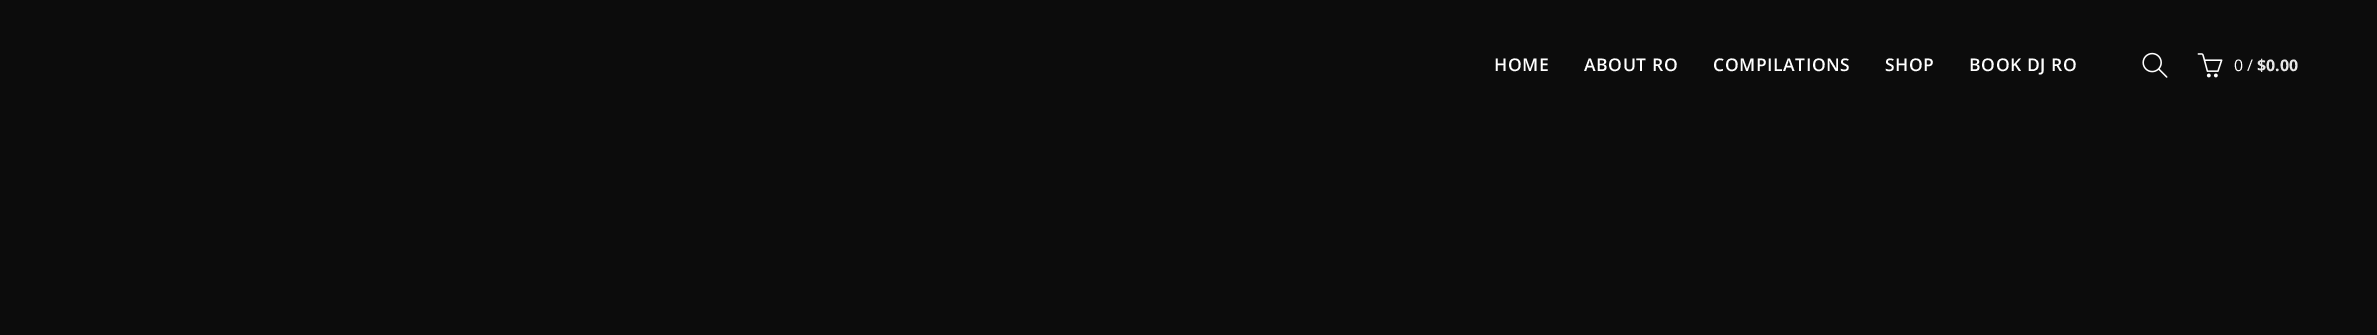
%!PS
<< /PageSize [2377 335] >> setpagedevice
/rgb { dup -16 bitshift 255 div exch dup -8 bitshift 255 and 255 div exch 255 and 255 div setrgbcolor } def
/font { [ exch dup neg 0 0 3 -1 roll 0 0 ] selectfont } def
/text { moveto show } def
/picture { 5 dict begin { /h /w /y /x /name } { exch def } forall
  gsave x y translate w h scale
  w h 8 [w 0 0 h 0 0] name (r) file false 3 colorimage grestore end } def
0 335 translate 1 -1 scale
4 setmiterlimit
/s1 { /OpenSans-Regular 16 font 16#FFFFFF rgb } def
/s2 { /OpenSans-Bold 16 font 16#E7E7E7 rgb } def
16#0C0C0C rgb
0 0 2377 335 rectfill
/OpenSans-SemiBold 17.5 font
16#FFFFFF rgb
1494 71 moveto 0.6 0 (HOME) ashow
1584 71 moveto 0.6 0 (ABOUT RO) ashow
1713 71 moveto 0.6 0 (COMPILATIONS) ashow
1885 71 moveto 0.6 0 (SHOP) ashow
1969 71 moveto 0.6 0 (BOOK DJ RO) ashow
(pic1.raw) 2142 52 26 26 picture
(pic2.raw) 2197 53 26 25 picture
s1
(0 /) 2234 71 text
s2
($0.00) 2257 71 text
showpage
